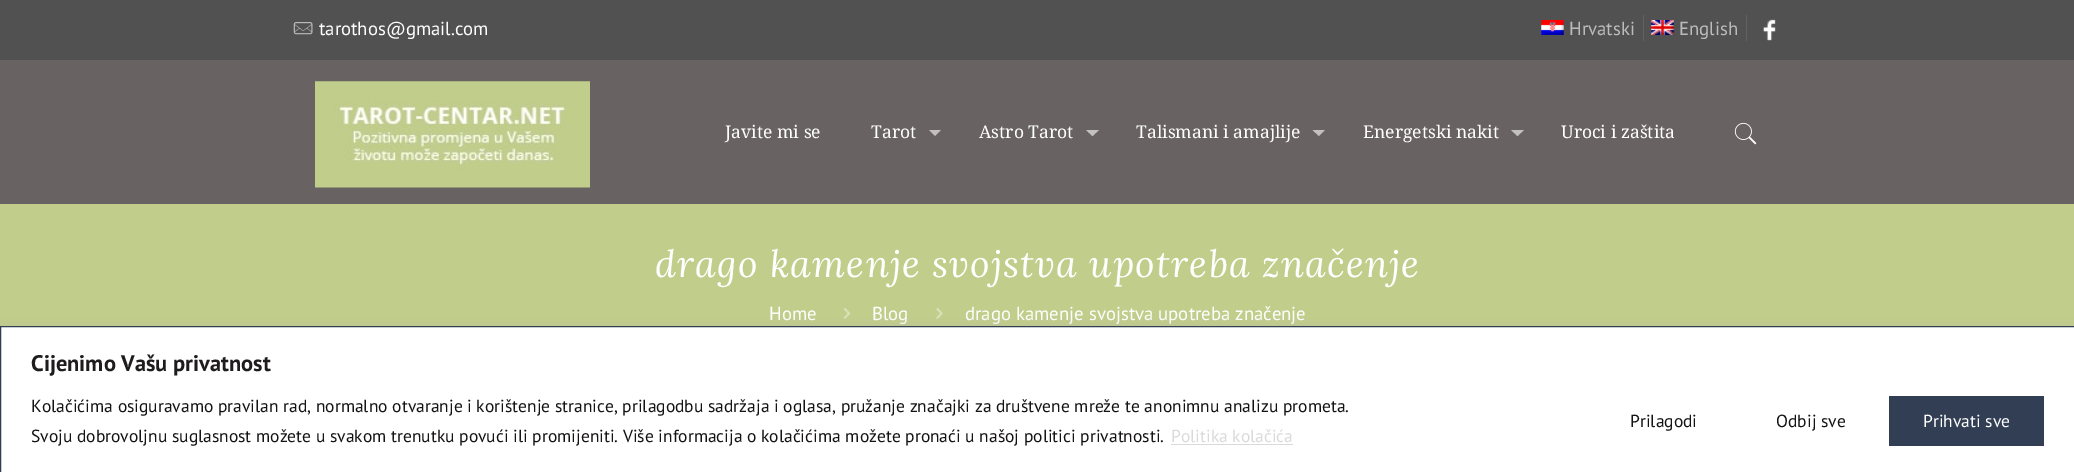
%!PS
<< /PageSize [2074 472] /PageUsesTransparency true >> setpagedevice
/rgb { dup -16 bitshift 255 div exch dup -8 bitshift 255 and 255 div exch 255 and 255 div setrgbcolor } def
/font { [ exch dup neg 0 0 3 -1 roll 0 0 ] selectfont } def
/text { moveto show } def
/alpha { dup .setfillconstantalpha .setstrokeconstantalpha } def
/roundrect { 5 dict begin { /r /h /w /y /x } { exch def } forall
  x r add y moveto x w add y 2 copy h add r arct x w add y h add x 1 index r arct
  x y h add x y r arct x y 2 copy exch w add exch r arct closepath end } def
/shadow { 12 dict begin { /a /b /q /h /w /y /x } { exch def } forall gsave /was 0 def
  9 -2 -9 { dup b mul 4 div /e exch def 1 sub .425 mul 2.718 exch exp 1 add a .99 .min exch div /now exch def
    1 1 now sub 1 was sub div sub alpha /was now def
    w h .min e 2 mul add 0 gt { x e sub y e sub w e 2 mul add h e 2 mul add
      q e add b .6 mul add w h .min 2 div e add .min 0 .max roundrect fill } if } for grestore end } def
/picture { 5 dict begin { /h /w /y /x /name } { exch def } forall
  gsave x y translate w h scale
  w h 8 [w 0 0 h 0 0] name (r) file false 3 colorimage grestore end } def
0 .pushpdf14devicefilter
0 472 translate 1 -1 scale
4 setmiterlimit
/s1 { /PTSans-Regular 18.75 font 16#FFFFFF rgb } def
/s2 { /PTSans-Regular 18.75 font 16#BBBBBB rgb } def
/s3 { /NotoSerif-Regular 17.5 font 16#FFFFFF rgb } def
/s4 { /PTSans-Bold 22.5 font 16#1E1C1C rgb } def
/s5 { /PTSans-Regular 17.5 font 16#141212 rgb } def
/s6 { /PTSans-Regular 17.5 font 16#DBDADA rgb } def
/s7 { /PTSans-Regular 17.5 font 16#FFFFFF rgb } def
16#515151 rgb
0 0 2074 472 rectfill
(pic1.raw) 293 22 20 13 picture
s1
(tarothos@gmail.com) 319 35 text
16#626262 rgb
1643 15 1 26 rectfill
(pic2.raw) 1541 20 23 15 picture
s2
(Hrvatski) 1569 35 text
16#626262 rgb
1746 15 1 26 rectfill
(pic3.raw) 1651 20 23 15 picture
s2
(English) 1679 35 text
(pic4.raw) 1763 19 13 22 picture
16#696262 rgb
0 60 2074 144 rectfill
(pic5.raw) 315 81 275 107 picture
s3
(Javite mi se) 725 138 text
(Tarot) 871 138 text
16#C3C0C0 rgb
929 130 moveto 941 130 lineto 935 136 lineto closepath fill
s3
(Astro Tarot) 979 138 text
16#C3C0C0 rgb
1086 130 moveto 1099 130 lineto 1092.5 136 lineto closepath fill
s3
(Talismani i amajlije) 1136 138 text
16#C3C0C0 rgb
1312.5 130 moveto 1325 130 lineto 1319 136 lineto closepath fill
s3
(Energetski nakit) 1363 138 text
16#C3C0C0 rgb
1511 130 moveto 1524 130 lineto 1517.5 136 lineto closepath fill
s3
(Uroci i zaštita) 1561 138 text
(pic6.raw) 1734 122 23 23 picture
16#C1CD8B rgb
0 204 2074 122 rectfill
/Lora-Italic 37.5 font
16#FFFFFF rgb
655 277 moveto 1.25 0 (drago kamenje svojstva upotreba značenje) ashow
s1
(Home) 769 320 text
(pic7.raw) 843 308 7 11 picture
(Blog) 872 320 text
(pic8.raw) 936 308 7 11 picture
(drago kamenje svojstva upotreba značenje) 965 320 text
16#ACABAB rgb
0 325 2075 146 0 6 0.3 shadow
16#FFFFFF rgb
0.5 326.5 moveto 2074.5 326.5 lineto 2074.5 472.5 lineto 0.5 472.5 lineto closepath gsave fill grestore
16#313E54 rgb
stroke
s4
(Cijenimo Vašu privatnost) 31 371 text
s5
(Kolačićima osiguravamo pravilan rad, normalno otvaranje i korištenje stranice, prilagodbu sadržaja i oglasa, pružanje značajki za društvene mreže te anonimnu analizu prometa.) 31 412 text
(Svoju dobrovoljnu suglasnost možete u svakom trenutku povući ili promijeniti. Više informacija o kolačićima možete pronaći u našoj politici privatnosti.) 31 442 text
s6
(Politika kolačića) 1171 442 text
1171 444 122 1 rectfill
s5
(Prilagodi) 1630 427 text
(Odbij sve) 1776 427 text
16#313E54 rgb
1889 396 155 50 rectfill
s7
(Prihvati sve) 1923 427 text
.poppdf14devicefilter showpage
